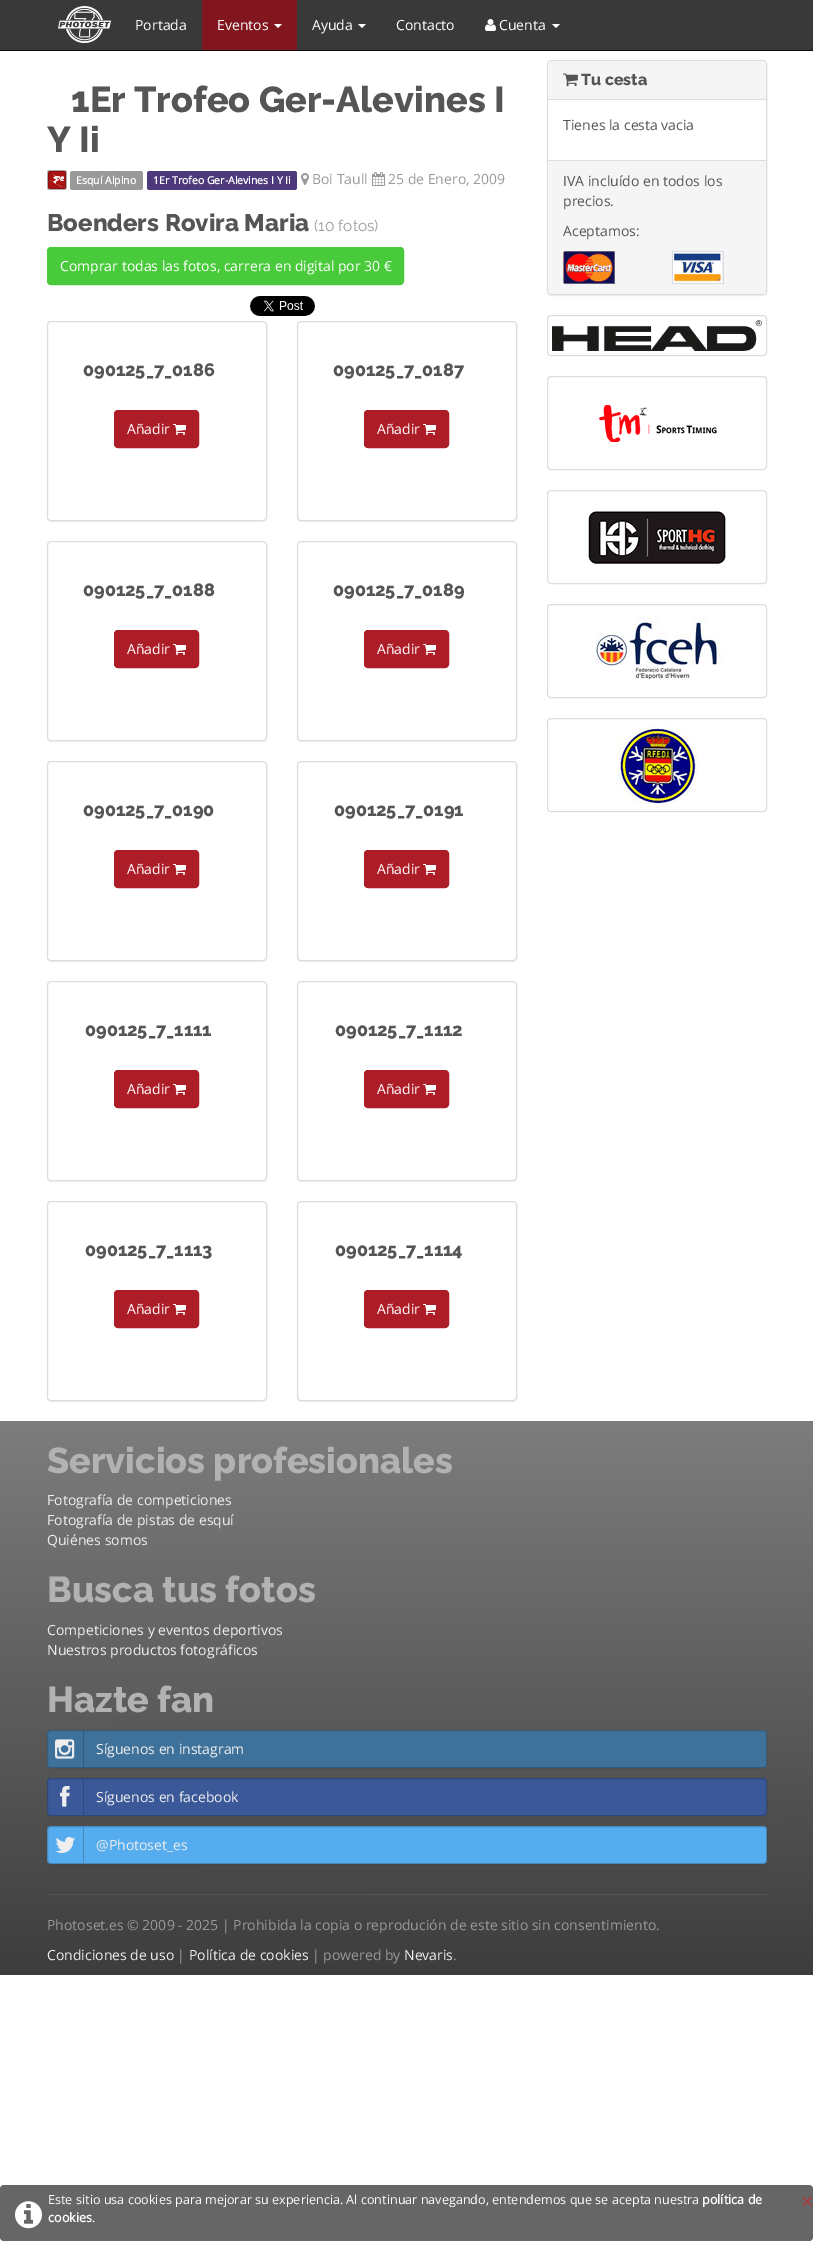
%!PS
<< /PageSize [813 2241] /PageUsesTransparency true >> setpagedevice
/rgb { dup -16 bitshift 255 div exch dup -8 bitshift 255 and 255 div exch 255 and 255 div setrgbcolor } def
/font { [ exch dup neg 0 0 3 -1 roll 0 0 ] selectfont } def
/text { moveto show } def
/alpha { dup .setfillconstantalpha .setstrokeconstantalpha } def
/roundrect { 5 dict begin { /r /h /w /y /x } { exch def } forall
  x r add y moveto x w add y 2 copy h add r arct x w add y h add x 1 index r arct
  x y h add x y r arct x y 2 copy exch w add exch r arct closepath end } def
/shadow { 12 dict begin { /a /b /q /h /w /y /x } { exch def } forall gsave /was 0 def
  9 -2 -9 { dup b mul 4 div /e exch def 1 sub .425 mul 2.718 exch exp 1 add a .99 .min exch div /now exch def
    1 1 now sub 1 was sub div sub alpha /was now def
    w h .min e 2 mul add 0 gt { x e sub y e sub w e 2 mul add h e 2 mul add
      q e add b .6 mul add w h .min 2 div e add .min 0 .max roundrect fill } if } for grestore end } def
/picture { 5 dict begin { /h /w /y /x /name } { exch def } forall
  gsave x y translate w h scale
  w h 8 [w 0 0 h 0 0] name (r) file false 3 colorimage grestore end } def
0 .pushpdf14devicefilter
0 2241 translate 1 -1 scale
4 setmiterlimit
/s1 { /OpenSans-Regular 14 font 16#FFFFFF rgb } def
/s2 { /Raleway-ExtraBold 36 font 16#555555 rgb } def
/s3 { /OpenSans-Bold 10.5 font 16#FFFFFF rgb } def
/s4 { /OpenSans-Regular 14 font 16#999999 rgb } def
/s5 { /Raleway-ExtraBold 24 font 16#555555 rgb } def
/s6 { /Raleway-Regular 15.5 font 16#999999 rgb } def
/s7 { /Raleway-ExtraBold 18 font 16#555555 rgb } def
/s8 { /Raleway-ExtraBold 16 font 16#555555 rgb } def
/s9 { /OpenSans-Regular 14 font 16#555555 rgb } def
/s10 { /Raleway-ExtraBold 36 font 16#B2B2B2 rgb } def
/s11 { /OpenSans-Regular 14 font 16#EEEEEE rgb } def
/s12 { /OpenSans-Regular 12.6 font 16#FFFFFF rgb } def
/s13 { /OpenSans-Bold 12.6 font 16#FFFFFF rgb } def
/s14 { /OpenSans-Bold 21 font 16#A04242 rgb } def
16#FFFFFF rgb
0 0 813 2241 rectfill
16#393939 rgb
0 0 813 50 rectfill
16#0B0B0B rgb
0 50 813 1 rectfill
(pic1.raw) 58 6 53 37 picture
s1
(Portada) 135 30 text
16#81161E rgb
202 0 95 50 rectfill
s1
(Eventos) 217 30 text
274 24 moveto 282 24 lineto 278 28 lineto closepath fill
(Ayuda) 312 30 text
358 24 moveto 366 24 lineto 362 28 lineto closepath fill
(Contacto) 396 30 text
(pic2.raw) 485 19 11 12 picture
(Cuenta) 499 30 text
552 24 moveto 560 24 lineto 556 28 lineto closepath fill
s2
(1Er Trofeo Ger-Alevines I) 71 112 text
(Y Ii) 47 152 text
(pic3.raw) 47 170 20 20 picture
16#999999 rgb
70 171 73 19 2.5 roundrect fill
s3
(Esquí Alpino) 76 184 text
16#4D3A7D rgb
147 171 150 19 2.5 roundrect fill
s3
(1Er Trofeo Ger-Alevines I Y Ii) 153 184 text
(pic4.raw) 301 173 8 12 picture
s4
(Boi Taull) 312 184 text
(pic5.raw) 372 172 13 14 picture
(25 de Enero, 2009) 388 184 text
s5
(Boenders Rovira Maria) 47 231 text
s6
(\(10 fotos\)) 314 231 text
16#48CA3B rgb
47.5 247.5 356 37 3.5 roundrect gsave fill grestore
stroke
s1
(Comprar todas las fotos, carrera en digital por 30 €) 60 271 text
(pic6.raw) 250 296 65 20 picture
16#000000 rgb
47 322 220 200 4 0.5 0.05 shadow
16#FFFFFF rgb
47.5 321.5 219 199 3.5 roundrect gsave fill grestore
16#DDDDDD rgb
stroke
s7
(090125_7_0186) 83 376 text
16#AD1D28 rgb
114.5 410.5 84 37 3.5 roundrect gsave fill grestore
stroke
s1
(Añadir) 127 434 text
(pic7.raw) 173 424 13 11 picture
16#000000 rgb
297 322 220 200 4 0.5 0.05 shadow
16#FFFFFF rgb
297.5 321.5 219 199 3.5 roundrect gsave fill grestore
16#DDDDDD rgb
stroke
s7
(090125_7_0187) 333 376 text
16#AD1D28 rgb
364.5 410.5 84 37 3.5 roundrect gsave fill grestore
stroke
s1
(Añadir) 377 434 text
(pic7.raw) 423 424 13 11 picture
16#000000 rgb
47 542 220 200 4 0.5 0.05 shadow
16#FFFFFF rgb
47.5 541.5 219 199 3.5 roundrect gsave fill grestore
16#DDDDDD rgb
stroke
s7
(090125_7_0188) 83 596 text
16#AD1D28 rgb
114.5 630.5 84 37 3.5 roundrect gsave fill grestore
stroke
s1
(Añadir) 127 654 text
(pic7.raw) 173 644 13 11 picture
16#000000 rgb
297 542 220 200 4 0.5 0.05 shadow
16#FFFFFF rgb
297.5 541.5 219 199 3.5 roundrect gsave fill grestore
16#DDDDDD rgb
stroke
s7
(090125_7_0189) 333 596 text
16#AD1D28 rgb
364.5 630.5 84 37 3.5 roundrect gsave fill grestore
stroke
s1
(Añadir) 377 654 text
(pic7.raw) 423 644 13 11 picture
16#000000 rgb
47 762 220 200 4 0.5 0.05 shadow
16#FFFFFF rgb
47.5 761.5 219 199 3.5 roundrect gsave fill grestore
16#DDDDDD rgb
stroke
s7
(090125_7_0190) 83 816 text
16#AD1D28 rgb
114.5 850.5 84 37 3.5 roundrect gsave fill grestore
stroke
s1
(Añadir) 127 874 text
(pic7.raw) 173 864 13 11 picture
16#000000 rgb
297 762 220 200 4 0.5 0.05 shadow
16#FFFFFF rgb
297.5 761.5 219 199 3.5 roundrect gsave fill grestore
16#DDDDDD rgb
stroke
s7
(090125_7_0191) 334 816 text
16#AD1D28 rgb
364.5 850.5 84 37 3.5 roundrect gsave fill grestore
stroke
s1
(Añadir) 377 874 text
(pic7.raw) 423 864 13 11 picture
16#000000 rgb
47 982 220 200 4 0.5 0.05 shadow
16#FFFFFF rgb
47.5 981.5 219 199 3.5 roundrect gsave fill grestore
16#DDDDDD rgb
stroke
s7
(090125_7_1111) 85 1036 text
16#AD1D28 rgb
114.5 1070.5 84 37 3.5 roundrect gsave fill grestore
stroke
s1
(Añadir) 127 1094 text
(pic7.raw) 173 1084 13 11 picture
16#000000 rgb
297 982 220 200 4 0.5 0.05 shadow
16#FFFFFF rgb
297.5 981.5 219 199 3.5 roundrect gsave fill grestore
16#DDDDDD rgb
stroke
s7
(090125_7_1112) 335 1036 text
16#AD1D28 rgb
364.5 1070.5 84 37 3.5 roundrect gsave fill grestore
stroke
s1
(Añadir) 377 1094 text
(pic7.raw) 423 1084 13 11 picture
16#000000 rgb
47 1202 220 200 4 0.5 0.05 shadow
16#FFFFFF rgb
47.5 1201.5 219 199 3.5 roundrect gsave fill grestore
16#DDDDDD rgb
stroke
s7
(090125_7_1113) 85 1256 text
16#AD1D28 rgb
114.5 1290.5 84 37 3.5 roundrect gsave fill grestore
stroke
s1
(Añadir) 127 1314 text
(pic7.raw) 173 1304 13 11 picture
16#000000 rgb
297 1202 220 200 4 0.5 0.05 shadow
16#FFFFFF rgb
297.5 1201.5 219 199 3.5 roundrect gsave fill grestore
16#DDDDDD rgb
stroke
s7
(090125_7_1114) 335 1256 text
16#AD1D28 rgb
364.5 1290.5 84 37 3.5 roundrect gsave fill grestore
stroke
s1
(Añadir) 377 1314 text
(pic7.raw) 423 1304 13 11 picture
16#000000 rgb
547 61 220 235 4 0.5 0.05 shadow
16#FFFFFF rgb
547.5 60.5 219 234 3.5 roundrect gsave fill grestore
16#DDDDDD rgb
stroke
16#F5F5F5 rgb
551 61 moveto 763 61 lineto 764.5 61 766 62.5 766 64 curveto 766 100 lineto 548 100 lineto 548 64 lineto 548 62.5 549.5 61 551 61 curveto closepath fill
16#DDDDDD rgb
548 99 218 1 rectfill
(pic8.raw) 563 73 15 14 picture
s8
(Tu cesta) 581 85 text
s9
(Tienes la cesta vacia) 563 130 text
16#F5F5F5 rgb
548 160 moveto 766 160 lineto 766 291 lineto 766 292.5 764.5 294 763 294 curveto 551 294 lineto 549.5 294 548 292.5 548 291 curveto closepath fill
16#DDDDDD rgb
548 160 218 1 rectfill
s9
(IVA incluído en todos los) 563 186 text
(precios.) 563 206 text
(Aceptamos:) 563 236 text
(pic9.raw) 563 251 52 33 picture
(pic10.raw) 672 251 52 33 picture
16#DDDDDD rgb
547.5 315.5 219 40 3.5 roundrect stroke
(pic11.raw) 552 320 210 31 picture
547.5 376.5 219 93 3.5 roundrect stroke
(pic12.raw) 599 405 118 37 picture
547.5 490.5 219 93 3.5 roundrect stroke
(pic13.raw) 588 511 138 53 picture
547.5 604.5 219 93 3.5 roundrect stroke
(pic14.raw) 595 617 128 64 picture
547.5 718.5 219 93 3.5 roundrect stroke
(pic15.raw) 618 727 80 77 picture
gsave 0 1421 moveto 813 1421 lineto 813 1975 lineto 0 1975 lineto closepath clip newpath
<< /ShadingType 2 /ColorSpace /DeviceRGB /Coords [406 1421 407 1975] /Extend [true true] /Function << /FunctionType 2 /Domain [0 1] /C0 [0.49 0.49 0.49] /C1 [0.239 0.239 0.239] /N 1 >> >> shfill grestore
s10
(Servicios profesionales) 47 1473 text
s11
(Fotografía de competiciones) 47 1505 text
(Fotografía de pistas de esquí) 47 1525 text
(Quiénes somos) 47 1545 text
s10
(Busca tus fotos) 47 1602 text
s11
(Competiciones y eventos deportivos) 47 1635 text
(Nuestros productos fotográficos) 47 1655 text
s10
(Hazte fan) 47 1712 text
16#3F729B rgb
47 1730 720 38 4 roundrect fill
0.2 alpha
16#000000 rgb
47.5 1730.5 719 37 3.5 roundrect stroke
1 alpha
16#325B7C rgb
83 1731 1 36 rectfill
(pic16.raw) 55 1739 20 20 picture
s11
(Síguenos en instagram) 96 1754 text
16#3B5998 rgb
47 1778 720 38 4 roundrect fill
0.2 alpha
16#000000 rgb
47.5 1778.5 719 37 3.5 roundrect stroke
1 alpha
16#2F477A rgb
83 1779 1 36 rectfill
(pic17.raw) 60 1786 10 21 picture
s11
(Síguenos en facebook) 96 1802 text
16#55ACEE rgb
47 1826 720 38 4 roundrect fill
0.2 alpha
16#000000 rgb
47.5 1826.5 719 37 3.5 roundrect stroke
1 alpha
16#448ABE rgb
83 1827 1 36 rectfill
(pic18.raw) 55 1837 20 16 picture
s11
(@Photoset_es) 96 1850 text
16#555555 rgb
47 1894 720 1 rectfill
s4
(Photoset.es © 2009 - 2025 | Prohibida la copia o reprodución de este sitio sin consentimiento.) 47 1930 text
s11
(Condiciones de uso) 47 1960 text
s4
(|) 177 1960 text
s11
(Política de cookies) 189 1960 text
s4
(| powered by) 312 1960 text
s11
(Nevaris) 404 1960 text
s4
(.) 453 1960 text
16#666666 rgb
0 2185 813 56 4 roundrect fill
(pic19.raw) 15 2201 27 28 picture
s12
(Este sitio usa cookies para mejorar su experiencia. Al continuar navegando, entendemos que se acepta nuestra) 48 2204 text
s13
(política de) 702 2204 text
(cookies) 48 2222 text
s12
(.) 92 2222 text
s14
(×) 801 2209 text
.poppdf14devicefilter showpage
